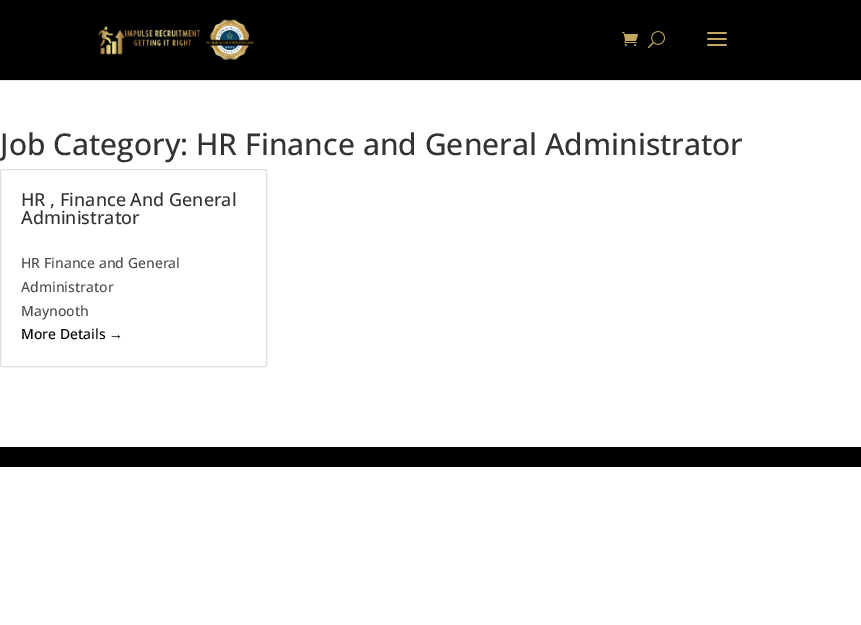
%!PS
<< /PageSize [861 625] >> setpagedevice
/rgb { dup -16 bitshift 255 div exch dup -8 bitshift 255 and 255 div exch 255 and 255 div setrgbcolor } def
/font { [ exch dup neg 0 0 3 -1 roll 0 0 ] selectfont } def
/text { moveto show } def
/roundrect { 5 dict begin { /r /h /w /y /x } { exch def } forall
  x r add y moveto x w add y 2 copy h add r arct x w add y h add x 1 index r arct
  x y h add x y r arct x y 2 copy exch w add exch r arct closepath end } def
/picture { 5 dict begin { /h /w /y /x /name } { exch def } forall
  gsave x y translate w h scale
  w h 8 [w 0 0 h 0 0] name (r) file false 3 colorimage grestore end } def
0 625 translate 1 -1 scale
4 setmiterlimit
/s1 { /OpenSans-Medium 30 font 16#333333 rgb } def
/s2 { /OpenSans-Medium 18 font 16#333333 rgb } def
/s3 { /OpenSans-Medium 14 font 16#4C4C4C rgb } def
/s4 { /OpenSans-Medium 14 font 16#000000 rgb } def
/s5 { /LiberationSans-Regular 14 font 16#000000 rgb } def
16#FFFFFF rgb
0 0 861 625 rectfill
16#E6E6E6 rgb
0 80 861 1 rectfill
16#000000 rgb
0 0 861 80 rectfill
(pic1.raw) 98 19 156 42 picture
(pic2.raw) 622 32 16 14 picture
(pic3.raw) 648 31 17 18 picture
(pic4.raw) 707 32 20 14 picture
s1
(Job Category: HR Finance and General Administrator) 0 155 text
16#DDDFE3 rgb
0.5 169.5 266 197 1.5 roundrect stroke
s2
(HR , Finance And General) 21 206 text
(Administrator) 21 224 text
s3
(HR Finance and General) 21 268 text
(Administrator) 21 292 text
(Maynooth) 21 316 text
s4
(More Details) 21 339 text
s5
(→) 109 339 text
0 447 861 20 rectfill
showpage
